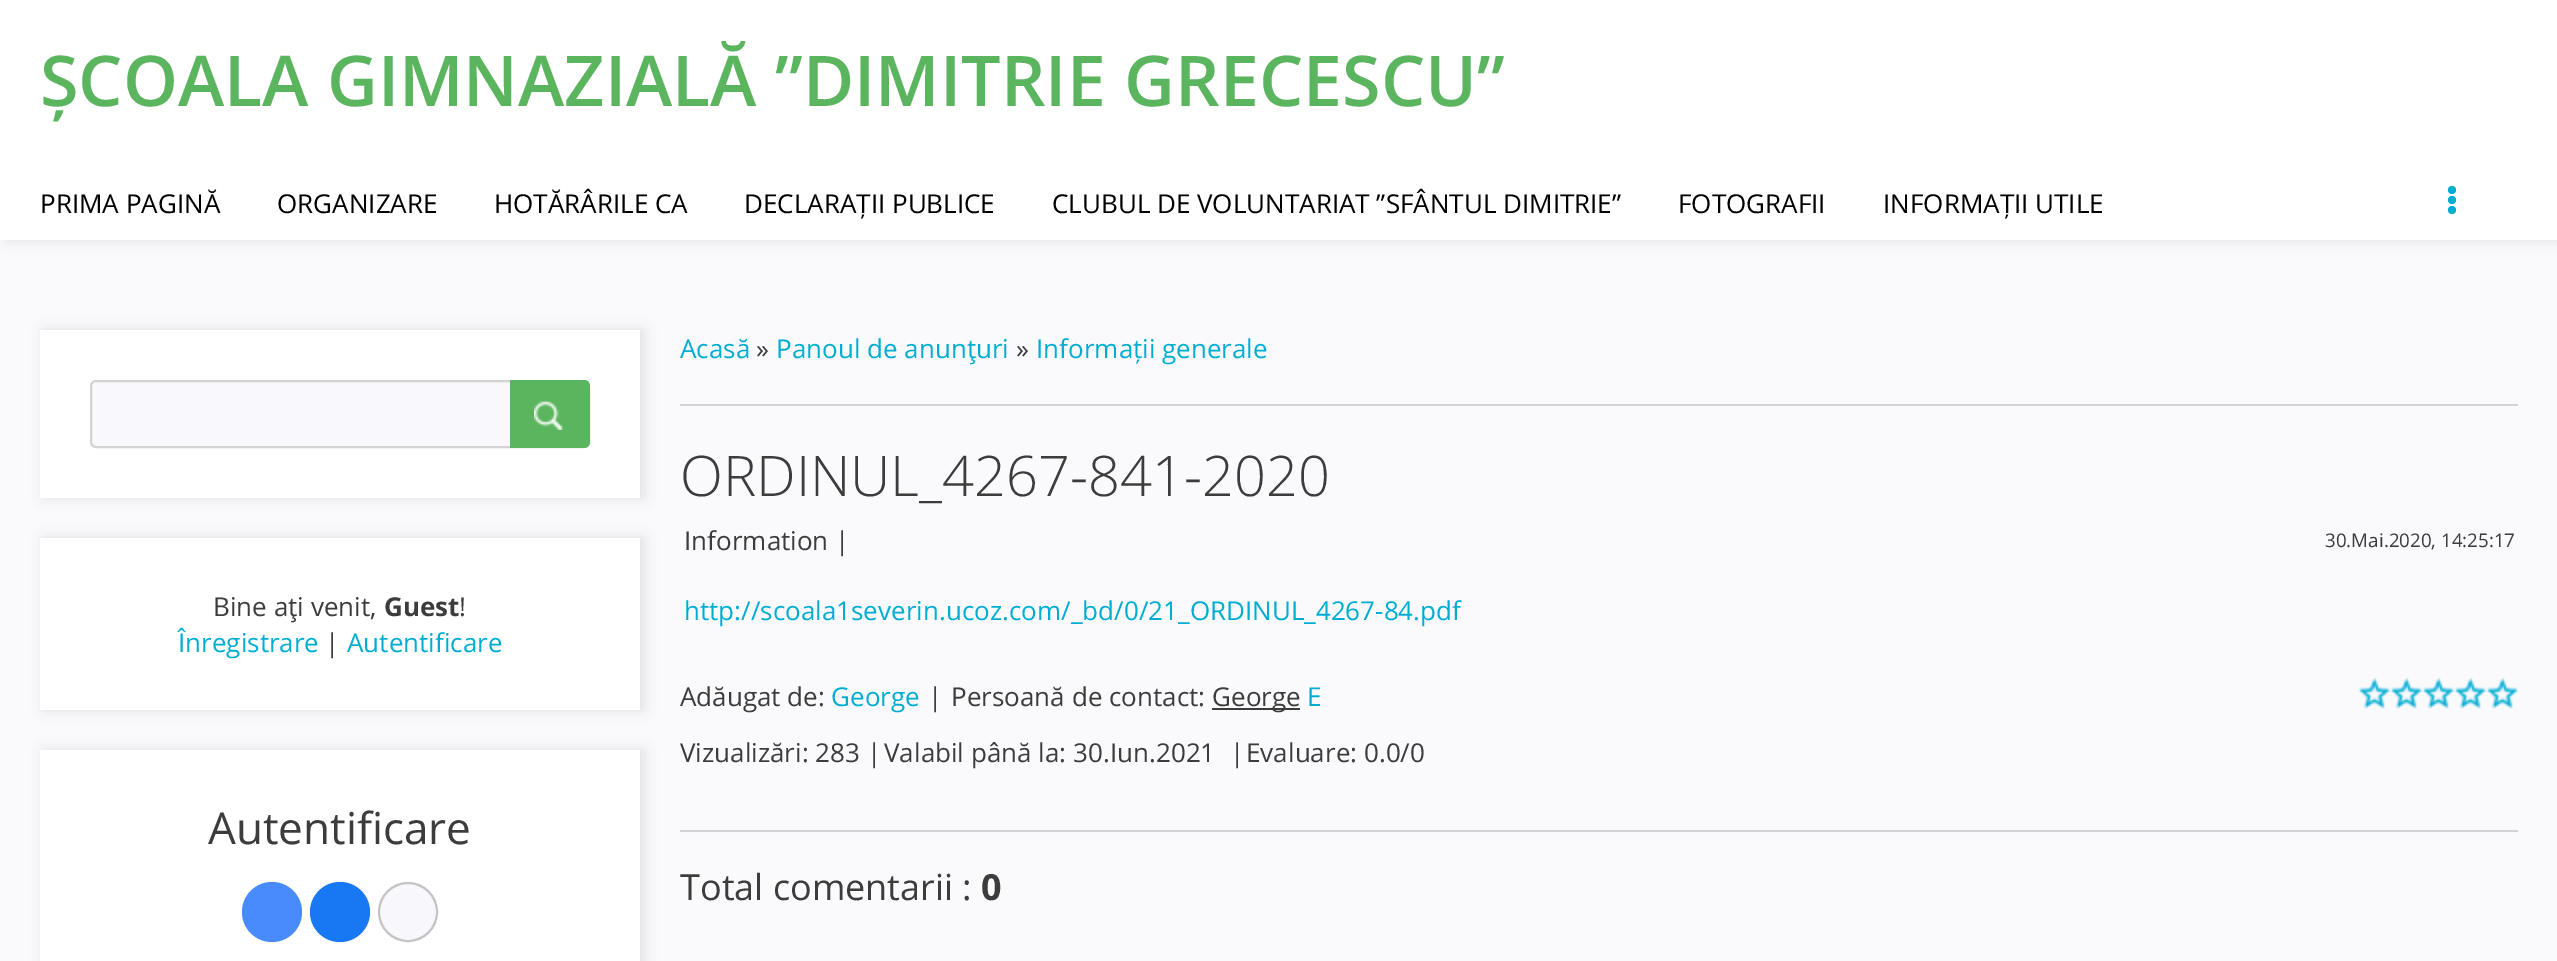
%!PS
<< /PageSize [2557 961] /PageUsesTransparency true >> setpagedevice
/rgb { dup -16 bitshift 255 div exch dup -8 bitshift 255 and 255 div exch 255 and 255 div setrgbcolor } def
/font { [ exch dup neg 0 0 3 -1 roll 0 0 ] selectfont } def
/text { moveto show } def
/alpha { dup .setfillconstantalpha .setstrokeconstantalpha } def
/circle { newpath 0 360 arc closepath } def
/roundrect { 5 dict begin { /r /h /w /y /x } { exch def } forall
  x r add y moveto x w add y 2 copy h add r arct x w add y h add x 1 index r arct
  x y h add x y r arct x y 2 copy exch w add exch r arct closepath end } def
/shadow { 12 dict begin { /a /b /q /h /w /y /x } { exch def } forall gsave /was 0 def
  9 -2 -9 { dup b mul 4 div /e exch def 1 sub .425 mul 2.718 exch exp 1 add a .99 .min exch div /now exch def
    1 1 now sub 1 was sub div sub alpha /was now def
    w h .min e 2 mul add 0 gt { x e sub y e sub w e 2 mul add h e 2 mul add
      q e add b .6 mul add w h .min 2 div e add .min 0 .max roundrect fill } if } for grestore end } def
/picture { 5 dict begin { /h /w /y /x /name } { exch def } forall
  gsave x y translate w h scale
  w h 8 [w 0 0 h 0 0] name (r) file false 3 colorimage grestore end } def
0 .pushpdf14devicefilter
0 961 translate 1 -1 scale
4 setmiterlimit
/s1 { /OpenSans-SemiBold 70 font 16#5BB55F rgb } def
/s2 { /OpenSans-Regular 26 font 16#000000 rgb } def
/s3 { /OpenSans-Regular 26 font 16#3C3C3C rgb } def
/s4 { /OpenSans-Bold 26 font 16#3C3C3C rgb } def
/s5 { /OpenSans-Regular 26 font 16#00ADD2 rgb } def
/s6 { /OpenSans-Regular 44 font 16#3C3C3C rgb } def
/s7 { /OpenSans-Light 56 font 16#3C3C3C rgb } def
/s8 { /OpenSans-Regular 18.75 font 16#3C3C3C rgb } def
/s9 { /OpenSans-Regular 36 font 16#3C3C3C rgb } def
/s10 { /OpenSans-Bold 36 font 16#3C3C3C rgb } def
16#FAFAFD rgb
0 0 2557 961 rectfill
16#000000 rgb
6 0 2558 240 0 7 0.1 shadow
16#FFFFFF rgb
0 0 2557 240 rectfill
s1
(ȘCOALA GIMNAZIALĂ ”DIMITRIE GRECESCU”) 40 106 text
s2
(PRIMA PAGINĂ) 40 213 text
(ORGANIZARE) 277 213 text
(HOTĂRÂRILE CA) 494 213 text
(DECLARAȚII PUBLICE) 744 213 text
(CLUBUL DE VOLUNTARIAT ”SFÂNTUL DIMITRIE”) 1052 213 text
(FOTOGRAFII) 1678 213 text
(INFORMAȚII UTILE) 1883 213 text
16#00ADD2 rgb
2452 190 4 circle fill
2452 200 4 circle fill
2452 210 4 circle fill
16#000000 rgb
44 330 600 168 0 7 0.1 shadow
16#FFFFFF rgb
40 330 600 168 rectfill
16#F9F9FD rgb
91 381 498 66 5 roundrect gsave fill grestore
16#D3D3D3 rgb
2 setlinewidth
stroke
16#5BB55F rgb
510 380 moveto 584 380 lineto 587.5 380 590 382.5 590 386 curveto 590 442 lineto 590 445.5 587.5 448 584 448 curveto 510 448 lineto closepath fill
(pic1.raw) 534 400 29 30 picture
16#000000 rgb
44 538 600 172 0 7 0.1 shadow
16#FFFFFF rgb
40 538 600 172 rectfill
s3
(Bine aţi venit,) 213 616 text
s4
(Guest) 384 616 text
s3
(!) 459 616 text
s5
(Înregistrare) 178 652 text
s3
(|) 325 652 text
s5
(Autentificare) 347 652 text
16#000000 rgb
44 750 600 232 0 7 0.1 shadow
16#FFFFFF rgb
40 750 600 211 rectfill
s6
(Autentificare) 208 844 text
16#498BFA rgb
272 912 30 circle fill
16#1877F2 rgb
340 912 30 circle fill
16#F8F8FC rgb
408 912 29 circle gsave fill grestore
16#C4C4C4 rgb
stroke
s5
(Acasă) 680 358 text
s3
(») 756 358 text
s5
(Panoul de anunţuri) 776 358 text
s3
(») 1016 358 text
s5
(Informații generale) 1036 358 text
16#D3D3D3 rgb
680 404 1838 2 rectfill
s7
(ORDINUL_4267-841-2020) 680 496 text
16#D3D3D3 rgb
680 830 1838 2 rectfill
s3
(Information |) 684 550 text
s8
(30.Mai.2020, 14:25:17) 2325 547 text
s5
(http://scoala1severin.ucoz.com/_bd/0/21_ORDINUL_4267-84.pdf) 684 620 text
s3
(Adăugat de:) 680 706 text
s5
(George) 831 706 text
s3
(|) 928 706 text
(Persoană de contact:) 951 706 text
1212 708 88 2 rectfill
(George) 1212 706 text
s5
(E) 1307 706 text
(pic2.raw) 2358 678 160 32 picture
s3
(Vizualizări: 283) 680 762 text
(|) 867 762 text
(Valabil până la: 30.Iun.2021) 884 762 text
(|) 1230 762 text
(Evaluare: 0.0/0) 1246 762 text
s9
(Total comentarii :) 680 900 text
s10
(0) 981 900 text
.poppdf14devicefilter showpage
